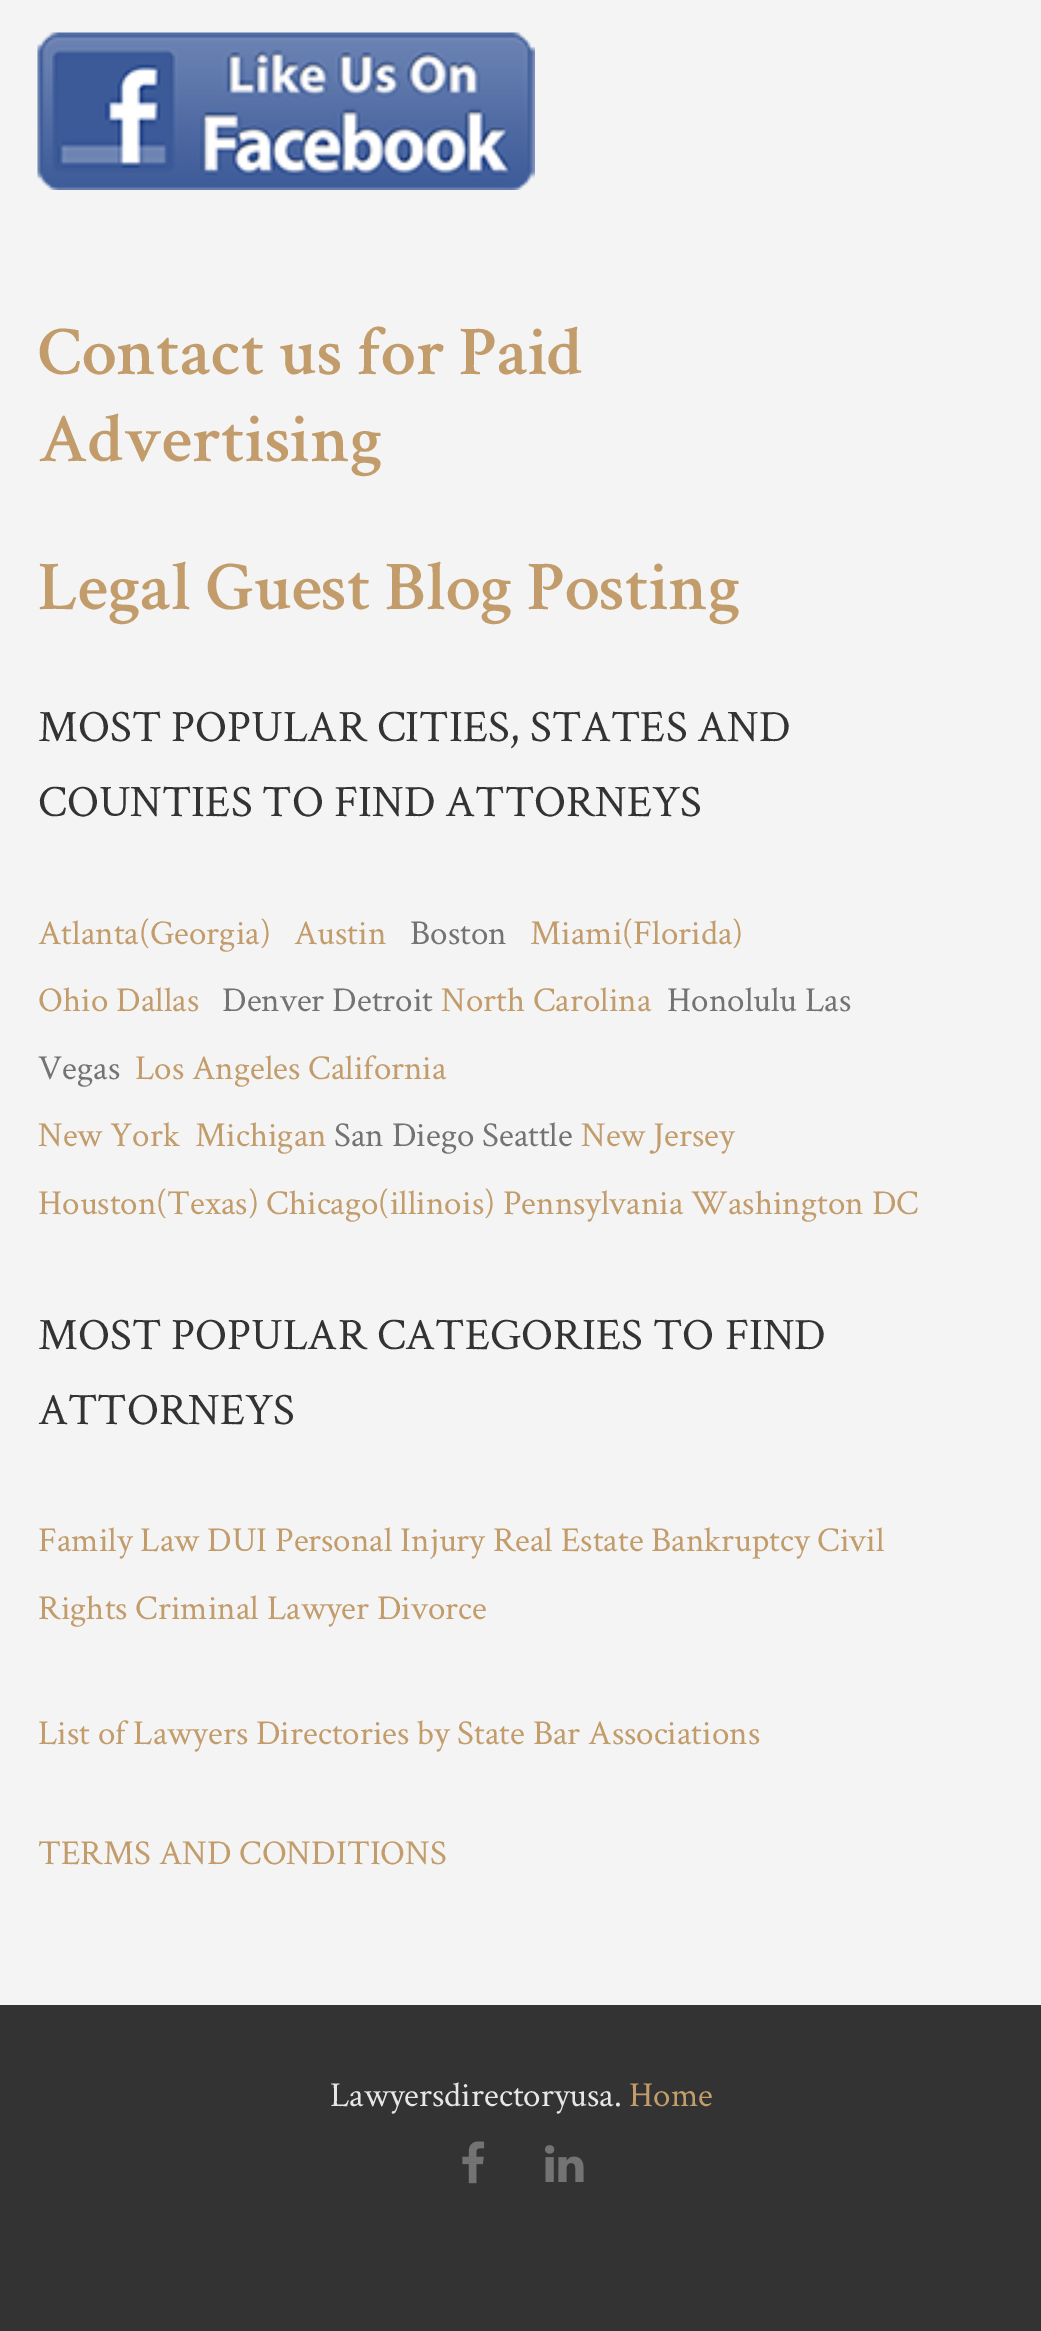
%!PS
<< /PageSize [1041 2331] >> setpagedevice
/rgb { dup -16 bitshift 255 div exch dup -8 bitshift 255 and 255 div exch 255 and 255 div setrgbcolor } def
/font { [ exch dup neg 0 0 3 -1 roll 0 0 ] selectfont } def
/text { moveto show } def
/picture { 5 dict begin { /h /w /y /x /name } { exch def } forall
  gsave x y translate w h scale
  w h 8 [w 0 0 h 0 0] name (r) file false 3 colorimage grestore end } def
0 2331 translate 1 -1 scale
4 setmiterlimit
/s1 { /CrimsonText-SemiBold 70 font 16#C29C6A rgb } def
/s2 { /CrimsonText-Regular 45 font 16#333333 rgb } def
/s3 { /CrimsonText-Regular 35 font 16#C29C6A rgb } def
/s4 { /CrimsonText-Regular 35 font 16#737373 rgb } def
/s5 { /CrimsonText-Regular 35 font 16#E6E6E6 rgb } def
16#333333 rgb
0 0 1041 2331 rectfill
16#F4F4F4 rgb
0 0 1041 2005 rectfill
(pic1.raw) 37 32 498 158 picture
s1
(Contact us for Paid) 38 374 text
(Advertising) 38 461 text
(Legal Guest Blog Posting) 38 609 text
s2
(MOST POPULAR CITIES, STATES AND) 38 741 text
(COUNTIES TO FIND ATTORNEYS) 38 816 text
s3
(Atlanta\(Georgia\)) 38 944 text
(Austin) 294 944 text
s4
(Boston) 410 944 text
s3
(Miami\(Florida\)) 530 944 text
(Ohio Dallas) 38 1011 text
s4
(Denver Detroit) 222 1011 text
s3
(North Carolina) 441 1011 text
s4
(Honolulu Las) 667 1011 text
(Vegas) 38 1079 text
s3
(Los Angeles California) 135 1079 text
(New York) 38 1146 text
(Michigan) 195 1146 text
s4
(San Diego Seattle) 334 1146 text
s3
(New Jersey) 581 1146 text
(Houston\(Texas\) Chicago\(illinois\) Pennsylvania Washington DC) 38 1214 text
s2
(MOST POPULAR CATEGORIES TO FIND) 38 1349 text
(ATTORNEYS) 38 1424 text
s3
(Family Law DUI Personal Injury Real Estate Bankruptcy Civil) 38 1551 text
(Rights Criminal Lawyer Divorce) 38 1619 text
(List of Lawyers Directories by State Bar Associations) 38 1744 text
(TERMS AND CONDITIONS) 38 1864 text
s5
(Lawyersdirectoryusa.) 330 2106 text
s3
(Home) 629 2106 text
(pic2.raw) 462 2141 23 43 picture
(pic3.raw) 545 2145 39 37 picture
showpage
